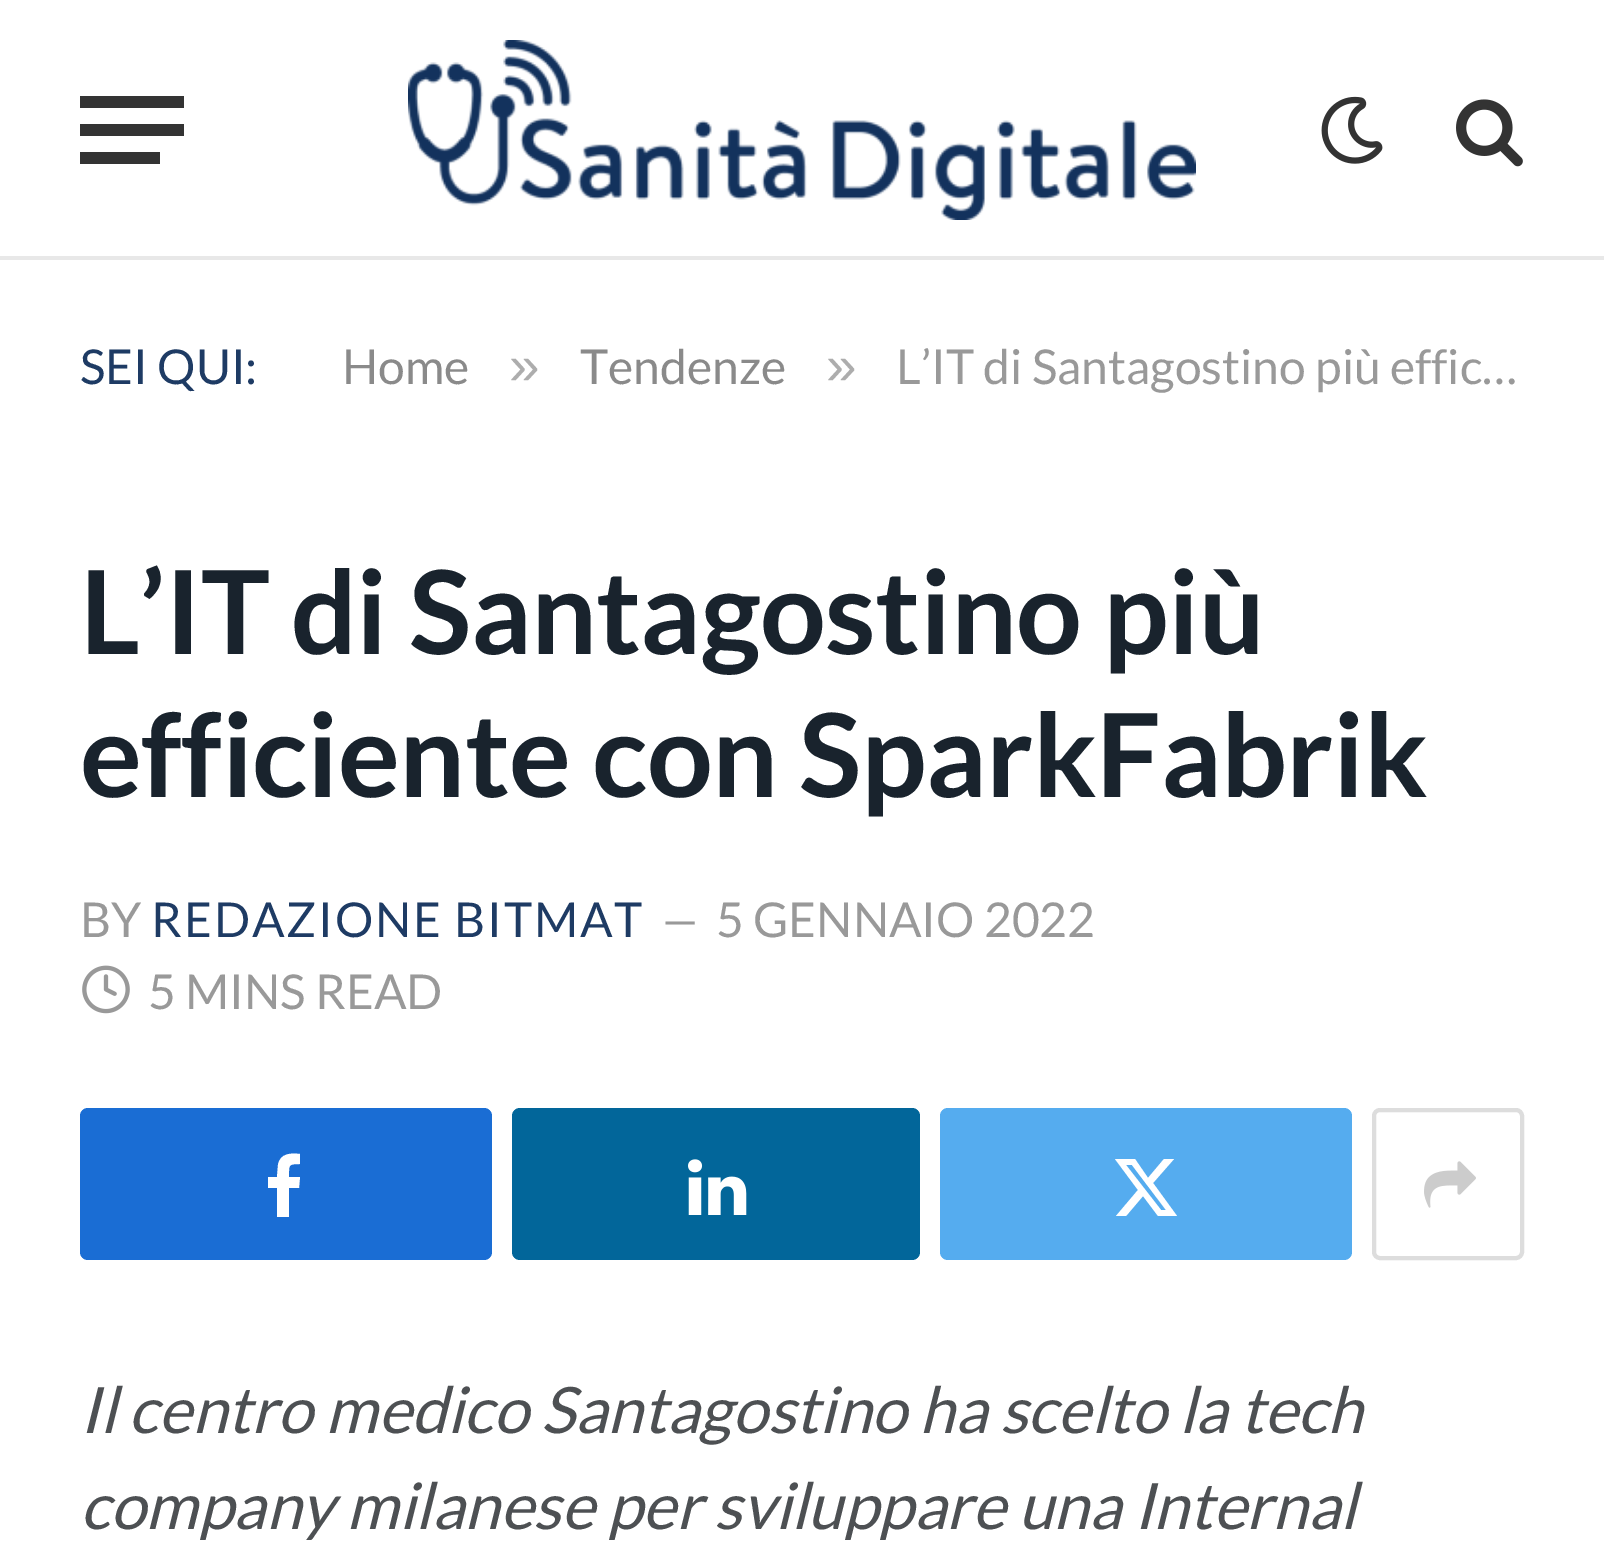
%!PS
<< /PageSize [1604 1560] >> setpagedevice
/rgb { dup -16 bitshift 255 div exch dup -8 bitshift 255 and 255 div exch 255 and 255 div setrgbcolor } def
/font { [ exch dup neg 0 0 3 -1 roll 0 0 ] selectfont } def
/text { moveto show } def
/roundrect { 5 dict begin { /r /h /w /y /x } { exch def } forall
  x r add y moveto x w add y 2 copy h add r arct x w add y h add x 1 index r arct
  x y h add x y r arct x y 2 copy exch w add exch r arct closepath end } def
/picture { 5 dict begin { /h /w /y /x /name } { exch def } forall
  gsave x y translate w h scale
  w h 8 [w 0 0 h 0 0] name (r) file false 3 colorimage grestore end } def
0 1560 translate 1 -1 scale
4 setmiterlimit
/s1 { /Lato-Regular 48 font 16#1E3B64 rgb } def
/s2 { /Lato-Regular 48 font 16#8A8A8A rgb } def
/s3 { /LiberationSans-Regular 55 font 16#ADADAD rgb } def
/s4 { /Lato-Regular 48 font 16#999999 rgb } def
/s5 { /Lato-Regular 44 font 16#999999 rgb } def
/s6 { /Lato-Italic 64 font 16#4D5053 rgb } def
16#FFFFFF rgb
0 0 1604 1560 rectfill
16#E8E8E8 rgb
0 256 1604 4 rectfill
16#333333 rgb
80 152 80 12 rectfill
80 96 104 12 rectfill
80 124 104 12 rectfill
(pic1.raw) 408 40 788 180 picture
(pic2.raw) 1321 96 62 68 picture
(pic3.raw) 1456 99 67 68 picture
s1
(SEI QUI:) 80 384 text
s2
(Home) 342 384 text
s3
(») 509 384 text
s2
(Tendenze) 580 384 text
s3
(») 826 384 text
s4
(L’IT di Santagostino più effic…) 896 384 text
/Lato-Bold 116 font
16#19232D rgb
80 654 moveto -0.6 0 (L’IT di Santagostino più) ashow
80 797 moveto -0.6 0 (efficiente con SparkFabrik) ashow
s4
(BY) 80 937 text
16#1E3B64 rgb
151 937 moveto 1.9 0 (REDAZIONE BITMAT) ashow
s5
(—) 662 936 text
s4
(5 GENNAIO 2022) 716 937 text
(pic4.raw) 82 965 48 49 picture
(5 MINS READ) 148 1009 text
16#1A6DD4 rgb
80 1108 412 152 8 roundrect fill
16#FFFFFF rgb
300 1154 moveto 300 1164 lineto 288 1164 289 1165 289 1177 curveto 300 1177 lineto 299 1188 lineto 289 1188 lineto 289 1217 lineto 277 1217 lineto 277 1188 lineto 268 1188 lineto 268 1177 lineto 277 1177 lineto 278 1165 lineto 280 1153 291 1153 300 1154 curveto closepath fill
16#02669A rgb
512 1108 408 152 8 roundrect fill
(pic5.raw) 688 1159 59 56 picture
16#55ACEF rgb
940 1108 412 152 8 roundrect fill
16#FFFFFF rgb
1164 1159 moveto 1174 1159 lineto 1153 1183 lineto 1177 1216 lineto 1158 1216 lineto 1143 1196 lineto 1126 1216 lineto 1116 1216 lineto 1138 1190 lineto 1115 1159 lineto 1135 1159 lineto 1148 1178 lineto closepath 1161 1210 moveto 1166 1210 lineto 1132 1165 lineto 1126 1165 lineto closepath fill
16#DDDDDD rgb
4 setlinewidth
1374 1110 148 148 6 roundrect stroke
(pic6.raw) 1424 1161 52 47 picture
s6
(Il centro medico Santagostino ha scelto la tech) 80 1433 text
(company milanese per sviluppare una Internal) 80 1529 text
showpage
